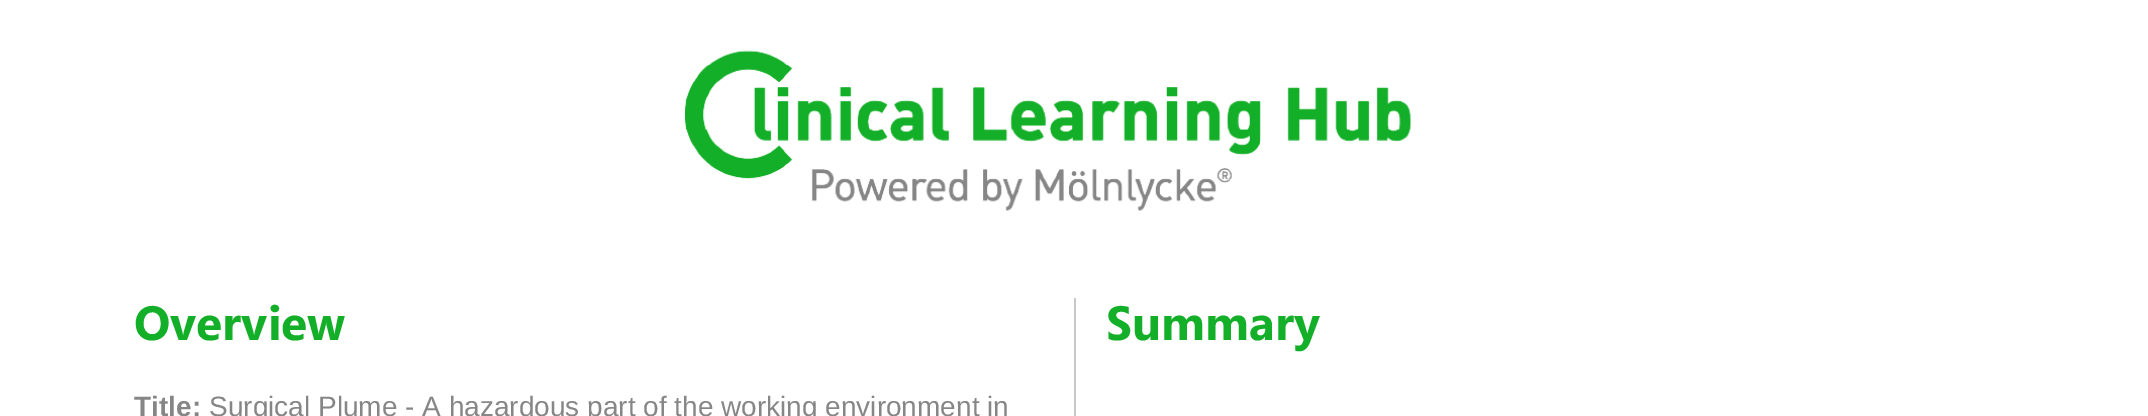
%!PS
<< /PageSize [2148 416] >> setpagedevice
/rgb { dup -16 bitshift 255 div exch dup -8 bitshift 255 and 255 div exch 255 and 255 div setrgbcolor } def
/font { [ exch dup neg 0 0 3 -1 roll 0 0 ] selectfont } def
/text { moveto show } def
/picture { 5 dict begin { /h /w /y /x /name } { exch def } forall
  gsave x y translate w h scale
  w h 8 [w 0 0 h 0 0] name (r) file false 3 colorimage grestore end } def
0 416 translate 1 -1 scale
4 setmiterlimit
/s1 { /SegoeUI-Bold 48 font 16#14AF28 rgb } def
/s2 { /LiberationSans-Bold 28 font 16#878686 rgb } def
/s3 { /LiberationSans-Regular 28 font 16#878686 rgb } def
16#FFFFFF rgb
0 0 2148 416 rectfill
(pic1.raw) 685 50 726 161 picture
s1
(Overview) 134 340 text
s2
(Title:) 134 416 text
s3
(Surgical Plume - A hazardous part of the working environment in) 209 416 text
16#C8C8C8 rgb
1074 298 2 118 rectfill
s1
(Summary) 1106 340 text
showpage
